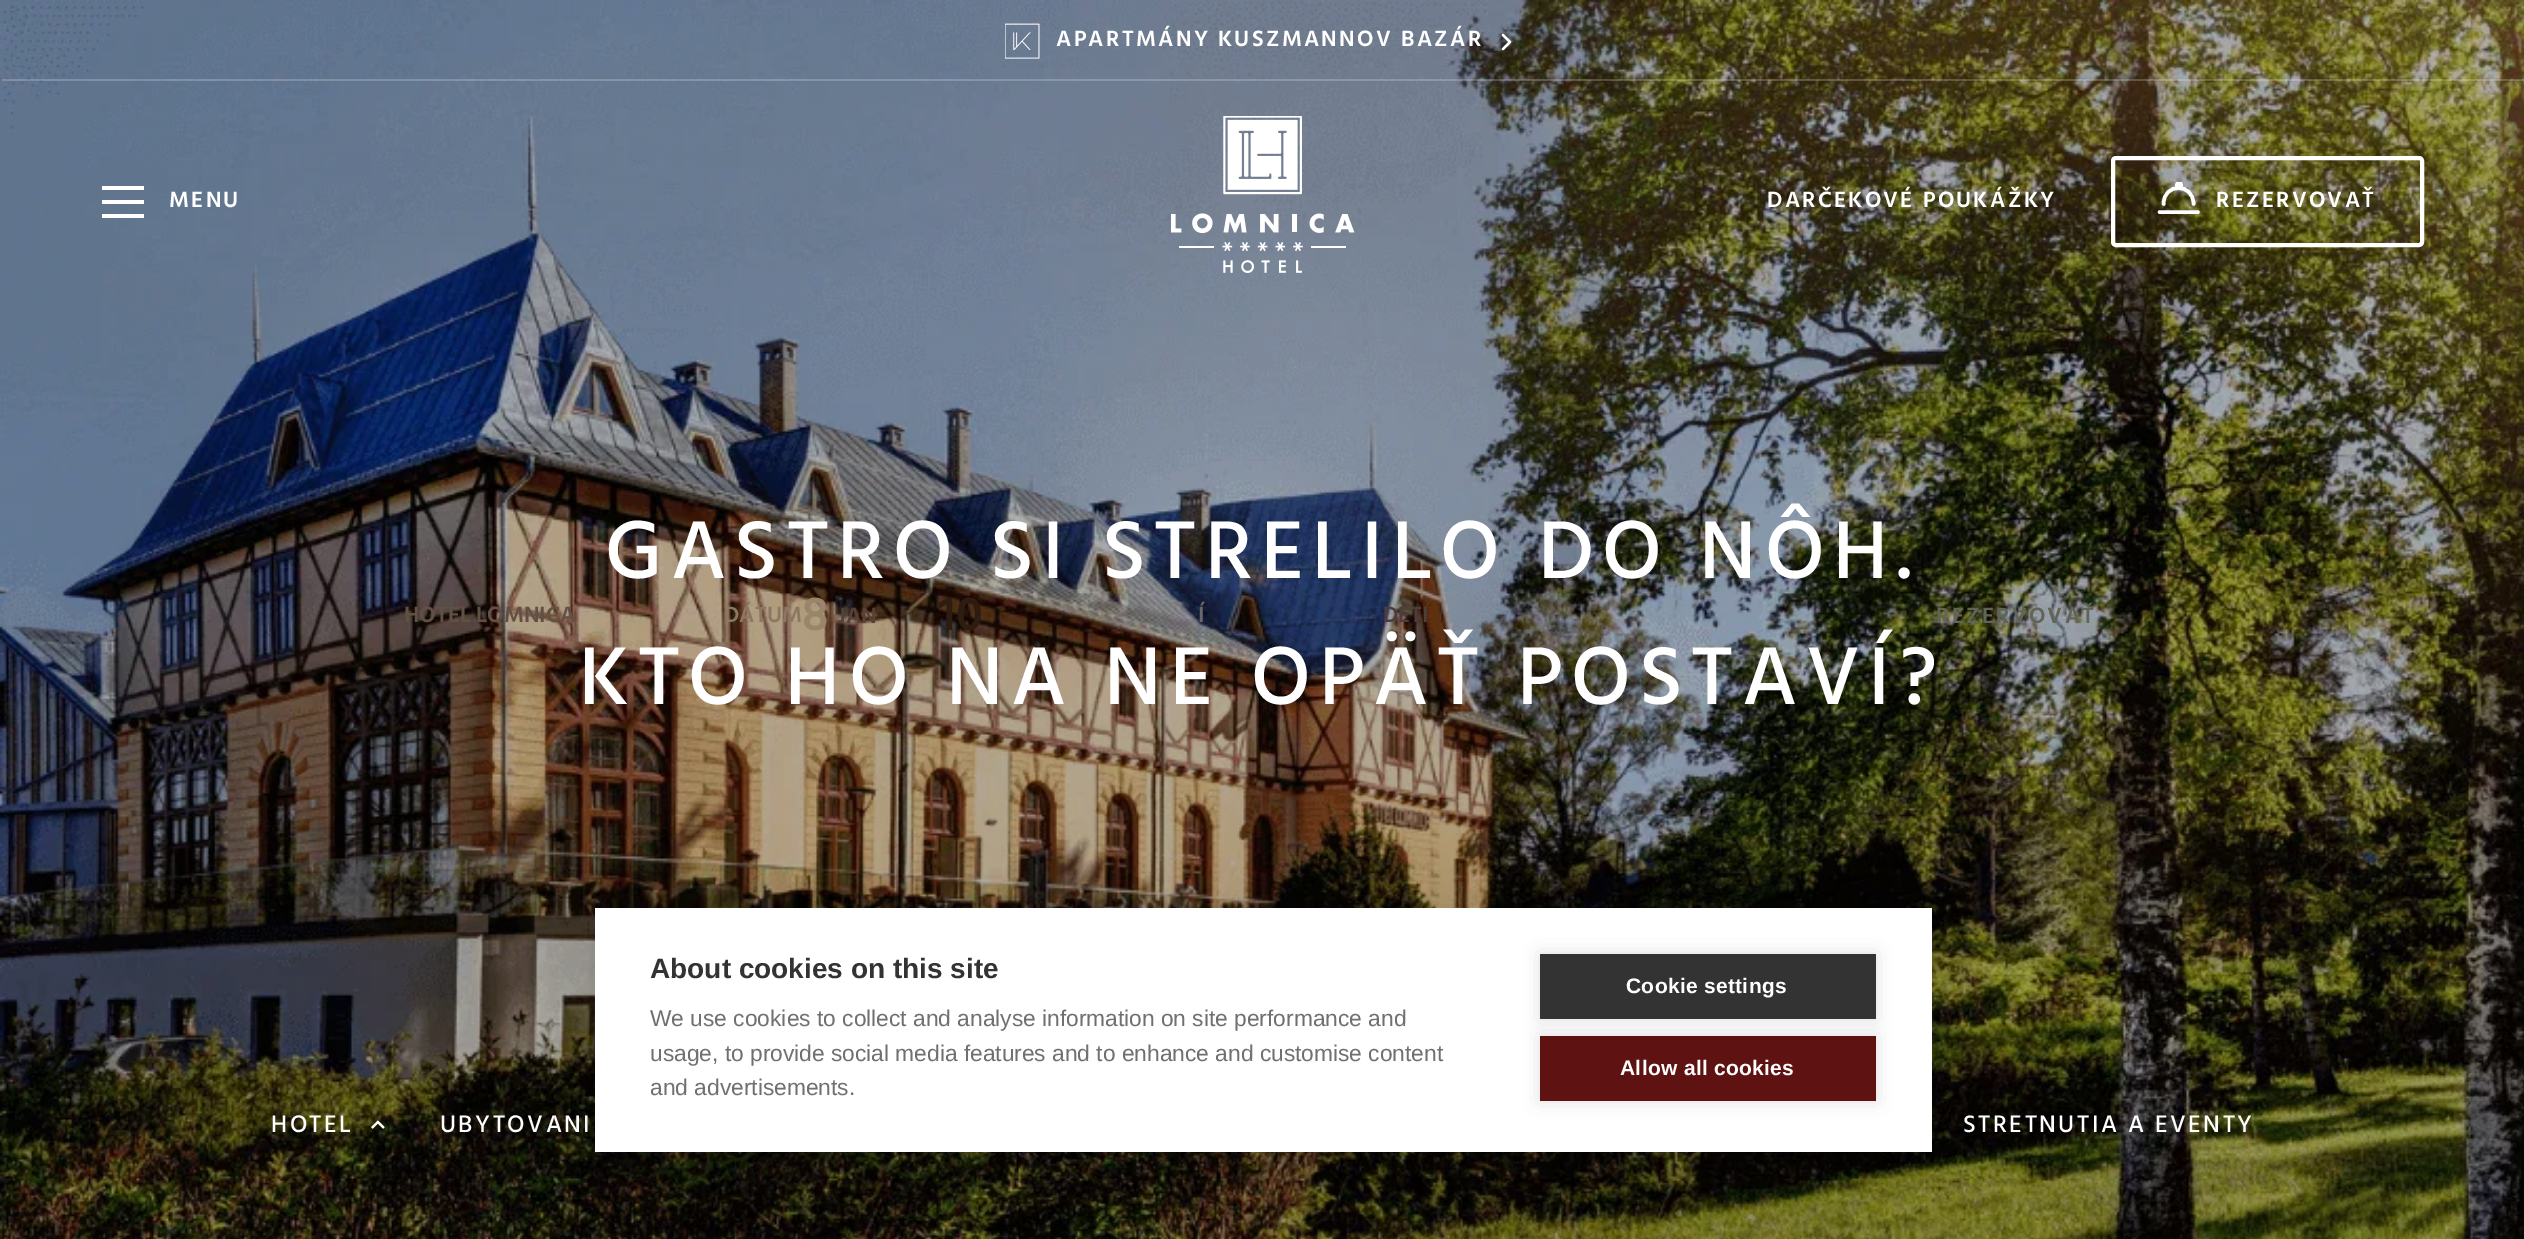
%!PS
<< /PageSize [2524 1239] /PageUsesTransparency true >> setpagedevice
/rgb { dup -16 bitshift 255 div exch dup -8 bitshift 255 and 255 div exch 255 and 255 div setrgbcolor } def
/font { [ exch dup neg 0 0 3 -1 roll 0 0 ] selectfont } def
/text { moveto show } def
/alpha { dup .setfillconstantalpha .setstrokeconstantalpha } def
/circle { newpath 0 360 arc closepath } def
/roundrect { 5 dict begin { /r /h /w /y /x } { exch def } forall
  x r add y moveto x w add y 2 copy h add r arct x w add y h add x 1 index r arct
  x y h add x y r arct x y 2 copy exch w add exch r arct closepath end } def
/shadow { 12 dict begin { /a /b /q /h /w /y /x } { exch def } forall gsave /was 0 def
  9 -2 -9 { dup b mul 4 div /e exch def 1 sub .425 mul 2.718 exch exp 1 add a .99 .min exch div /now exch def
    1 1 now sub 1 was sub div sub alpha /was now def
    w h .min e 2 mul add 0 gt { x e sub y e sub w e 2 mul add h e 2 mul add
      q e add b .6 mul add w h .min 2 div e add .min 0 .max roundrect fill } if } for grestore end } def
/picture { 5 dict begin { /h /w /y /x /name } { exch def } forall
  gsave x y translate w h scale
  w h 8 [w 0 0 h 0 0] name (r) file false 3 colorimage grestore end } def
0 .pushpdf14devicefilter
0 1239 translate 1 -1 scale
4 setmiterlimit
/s1 { /Hind-SemiBold 22.75 font 16#625044 rgb } def
/s2 { /Hind-SemiBold 22.75 font 16#8E7760 rgb } def
/s3 { /Hind-SemiBold 49 font 16#9A856A rgb } def
/s4 { /Hind-SemiBold 22.75 font 16#574035 rgb } def
/s5 { /Hind-SemiBold 49 font 16#2F1C11 rgb } def
/s6 { /Hind-SemiBold 22.75 font 16#69686D rgb } def
/s7 { /Hind-SemiBold 22.75 font 16#4D3E3B rgb } def
/s8 { /LiberationSans-Bold 28 font 16#333333 rgb } def
/s9 { /LiberationSans-Regular 22.75 font 16#707070 rgb } def
16#FFFFFF rgb
0 0 2524 1239 rectfill
(pic3.raw) 0 0 2524 1239 picture
(pic1.raw) 1005 23 35 36 picture
/Hind-SemiBold 22.75 font
1056 46 moveto 2.25 0 (APARTMÁNY KUSZMANNOV BAZÁR) ashow
2.3 setlinewidth
1 setlinecap
1 setlinejoin
1503 49 moveto 1510 42 lineto 1503 35 lineto stroke
0.2 alpha
2 79 2522 2 rectfill
1 alpha
102 200 42 4 rectfill
102 186 42 4 rectfill
102 214 42 4 rectfill
169 207 moveto 2.25 0 (MENU) ashow
(pic2.raw) 1171 116 184 157 picture
1767 207 moveto 2.25 0 (DARČEKOVÉ POUKÁŽKY) ashow
4 setlinewidth
0 setlinecap
0 setlinejoin
2113 158 309 87 3 roundrect stroke
3.5 setlinewidth
1 setlinecap
1 setlinejoin
2163.5 204 moveto 2163.5 182.5 2193.5 182.5 2193.5 204 curveto stroke
0 setlinejoin
2159.5 212 moveto 2198 212 lineto stroke
2179 185 3 circle fill
gsave
2158 182 42 32 rectclip
1.8 setlinewidth
0 setlinecap
2179 185 3 circle stroke
grestore
2216 207 moveto 2.25 0 (REZERVOVAŤ) ashow
/Hind-Medium 84 font
605 578 moveto 8.4 0 (GASTRO SI STRELILO DO NÔH.) ashow
579 704 moveto 8.4 0 (KTO HO NA NE OPÄŤ POSTAVÍ?) ashow
/Hind-Medium 24.5 font
271 1132 moveto 2.5 0 (HOTEL) ashow
(pic4.raw) 371 1120 14 9 picture
440 1132 moveto 2.5 0 (UBYTOVANI) ashow
1963 1132 moveto 2.5 0 (STRETNUTIA A EVENTY) ashow
s1
(HOTEL LOMNICA) 404 622 text
s2
(DÁTUM) 724 622 text
s3
(8) 802 630 text
s4
(JAN) 837 623 text
s5
(10) 938 630 text
s6
(Í) 1198 622 text
s7
(DETI) 1383 622 text
16#616557 rgb
1936 623 moveto 2.25 0 (REZERVOVAŤ) ashow
16#000000 rgb
595 908 1337 244 0 17.5 0.1 shadow
16#FFFFFF rgb
595 908 1337 244 rectfill
s8
(About cookies on this site) 650 978 text
s9
(We use cookies to collect and analyse information on site performance and) 650 1026 text
(usage, to provide social media features and to enhance and customise content) 650 1061 text
(and advertisements.) 650 1095 text
16#000000 rgb
1540 954 336 65 0 9 0.12 shadow
16#333333 rgb
1540 954 336 65 rectfill
/LiberationSans-Bold 21 font
16#FFFFFF rgb
1626 993 moveto 0.3 0 (Cookie settings) ashow
16#000000 rgb
1540 1036 336 65 0 9 0.12 shadow
16#5E1312 rgb
1540 1036 336 65 rectfill
16#FFFFFF rgb
1620 1075 moveto 0.3 0 (Allow all cookies) ashow
.poppdf14devicefilter showpage
